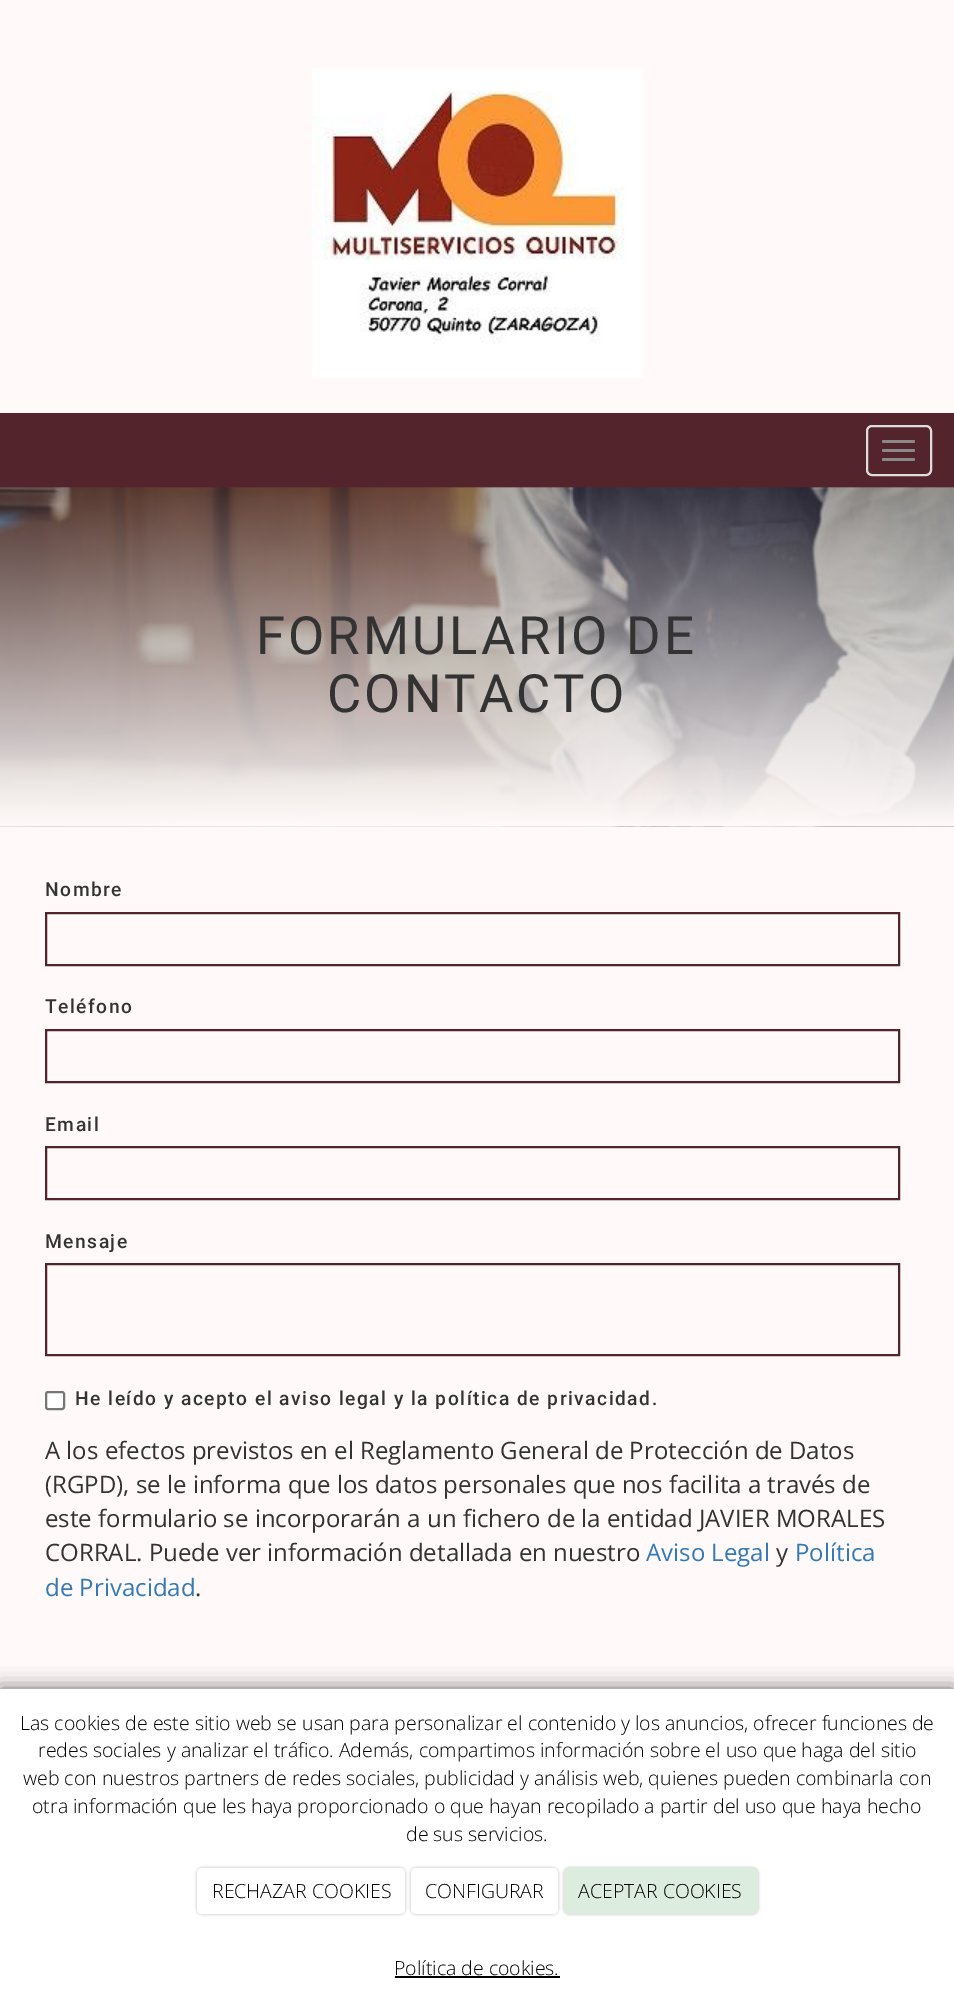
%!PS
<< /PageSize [954 2001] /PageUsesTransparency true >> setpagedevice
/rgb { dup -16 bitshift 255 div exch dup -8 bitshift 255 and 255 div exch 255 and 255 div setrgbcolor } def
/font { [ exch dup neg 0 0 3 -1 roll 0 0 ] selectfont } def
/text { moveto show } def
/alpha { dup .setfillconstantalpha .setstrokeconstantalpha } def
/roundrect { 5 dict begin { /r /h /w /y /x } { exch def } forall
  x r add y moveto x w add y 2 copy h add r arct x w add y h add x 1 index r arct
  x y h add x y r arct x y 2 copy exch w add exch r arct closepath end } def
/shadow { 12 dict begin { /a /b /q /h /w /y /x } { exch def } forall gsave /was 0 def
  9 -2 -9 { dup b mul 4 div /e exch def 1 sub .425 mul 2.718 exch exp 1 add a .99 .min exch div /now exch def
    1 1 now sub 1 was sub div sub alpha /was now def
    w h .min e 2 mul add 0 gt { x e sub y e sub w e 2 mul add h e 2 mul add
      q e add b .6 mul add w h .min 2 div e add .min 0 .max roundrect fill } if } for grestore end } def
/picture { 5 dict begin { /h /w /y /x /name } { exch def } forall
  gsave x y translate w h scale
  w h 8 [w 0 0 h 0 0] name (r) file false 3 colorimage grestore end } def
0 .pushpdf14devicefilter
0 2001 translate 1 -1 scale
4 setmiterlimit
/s1 { /OpenSans-Regular 24 font 16#333333 rgb } def
/s2 { /OpenSans-Regular 24 font 16#337AB7 rgb } def
/s3 { /OpenSans-Light 19.5 font 16#000000 rgb } def
16#FFFAF9 rgb
0 0 954 2001 rectfill
(pic1.raw) 312 68 331 310 picture
16#54242C rgb
0 413 954 75 rectfill
16#DDDDDD rgb
2 setlinewidth
867 426 64 49 5 roundrect stroke
16#888888 rgb
882 440 33 3 1.5 roundrect fill
882 449 33 3 1.5 roundrect fill
882 458 33 3 1.5 roundrect fill
(pic2.raw) 0 487 954 340 picture
/Roboto-Regular 52.75 font
16#333333 rgb
256 654 moveto 3 0 (FORMULARIO DE) ashow
327 712 moveto 3 0 (CONTACTO) ashow
/Roboto-Medium 19.2 font
45 896 moveto 1.5 0 (Nombre) ashow
16#54242C rgb
46 913 853 52 rectstroke
16#333333 rgb
45 1013 moveto 1.5 0 (Teléfono) ashow
16#54242C rgb
46 1030 853 52 rectstroke
16#333333 rgb
45 1131 moveto 1.5 0 (Email) ashow
16#54242C rgb
46 1147 853 52 rectstroke
16#333333 rgb
45 1248 moveto 1.5 0 (Mensaje) ashow
16#54242C rgb
46 1264 853 91 rectstroke
16#FFFFFF rgb
46 1392 18 17 2 roundrect gsave fill grestore
16#767676 rgb
stroke
16#333333 rgb
75 1405 moveto 1.5 0 (He leído y acepto el aviso legal y la política de privacidad.) ashow
s1
(A los efectos previstos en el Reglamento General de Protección de Datos) 45 1459 text
(\(RGPD\), se le informa que los datos personales que nos facilita a través de) 45 1493 text
(este formulario se incorporarán a un fichero de la entidad JAVIER MORALES) 45 1527 text
(CORRAL. Puede ver información detallada en nuestro) 45 1561 text
s2
(Aviso Legal) 646 1561 text
s1
(y) 776 1561 text
s2
(Política) 795 1561 text
(de Privacidad) 45 1596 text
s1
(.) 195 1596 text
16#000000 rgb
0 1689 954 312 0 10 0.6 shadow
16#FFFFFF rgb
0 1689 954 312 rectfill
s3
(Las cookies de este sitio web se usan para personalizar el contenido y los anuncios, ofrecer funciones de) 20 1730 text
(redes sociales y analizar el tráfico. Además, compartimos información sobre el uso que haga del sitio) 38 1757 text
(web con nuestros partners de redes sociales, publicidad y análisis web, quienes pueden combinarla con) 23 1785 text
(otra información que les haya proporcionado o que hayan recopilado a partir del uso que haya hecho) 32 1813 text
(de sus servicios.) 406 1841 text
197 1868 208 46 5 1.5 0.25 shadow
16#FFFFFF rgb
197 1868 208 46 5 roundrect fill
s3
(RECHAZAR COOKIES) 212 1898 text
411 1868 147 46 5 1.5 0.25 shadow
16#FFFFFF rgb
411 1868 147 46 5 roundrect fill
s3
(CONFIGURAR) 425 1898 text
564 1868 194 46 5 1.5 0.25 shadow
16#DCECDF rgb
564 1868 194 46 5 roundrect fill
s3
(ACEPTAR COOKIES) 578 1898 text
(Política de cookies.) 394 1975 text
395 1976 165 2 rectfill
.poppdf14devicefilter showpage
